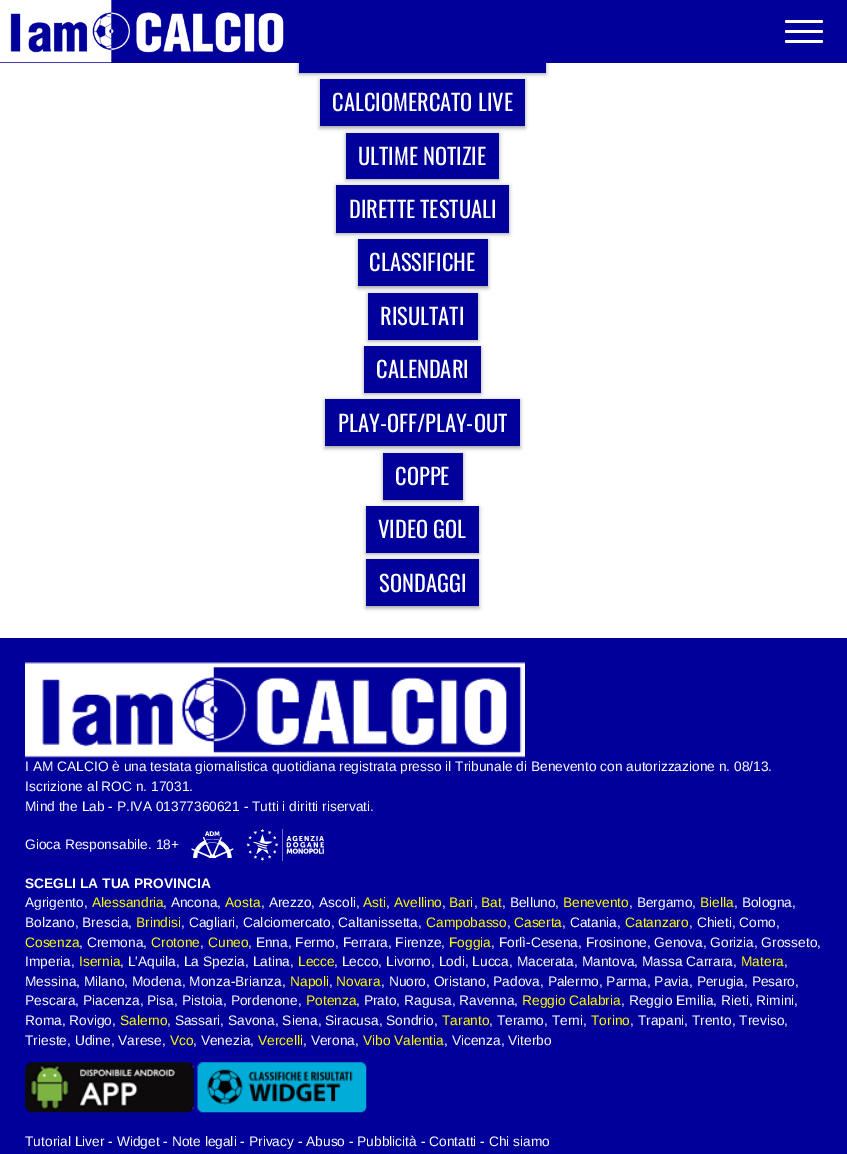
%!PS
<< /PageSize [847 1154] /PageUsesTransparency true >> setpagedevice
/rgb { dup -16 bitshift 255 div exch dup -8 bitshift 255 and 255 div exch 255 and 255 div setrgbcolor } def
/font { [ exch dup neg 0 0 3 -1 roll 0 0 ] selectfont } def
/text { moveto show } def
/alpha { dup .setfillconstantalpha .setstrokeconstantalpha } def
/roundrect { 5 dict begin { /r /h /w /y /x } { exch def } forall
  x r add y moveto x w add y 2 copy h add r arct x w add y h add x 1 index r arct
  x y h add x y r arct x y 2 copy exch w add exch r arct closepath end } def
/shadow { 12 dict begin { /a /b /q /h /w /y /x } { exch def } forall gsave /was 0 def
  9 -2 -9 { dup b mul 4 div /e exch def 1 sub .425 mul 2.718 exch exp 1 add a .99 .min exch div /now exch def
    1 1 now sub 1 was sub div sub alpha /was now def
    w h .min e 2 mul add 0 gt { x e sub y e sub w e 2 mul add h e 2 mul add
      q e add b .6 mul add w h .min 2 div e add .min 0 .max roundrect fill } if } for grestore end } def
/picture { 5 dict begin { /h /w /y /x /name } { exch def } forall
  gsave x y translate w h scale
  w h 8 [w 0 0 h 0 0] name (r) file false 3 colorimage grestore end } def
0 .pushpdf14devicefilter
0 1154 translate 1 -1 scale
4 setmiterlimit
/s1 { /Oswald-Regular 22.5 font 16#FFFFFF rgb } def
/s2 { /LiberationSans-Regular 13.75 font 16#FFFFFF rgb } def
/s3 { /LiberationSans-Bold 13.75 font 16#FFFFFF rgb } def
/s4 { /LiberationSans-Regular 13.75 font 16#FFFF00 rgb } def
16#FFFFFF rgb
0 0 847 1154 rectfill
16#3F3F3F rgb
299 26 247 48 0 2 0.5 shadow
16#01009A rgb
0 0 847 63 rectfill
(pic1.raw) 0 0 284 63 picture
16#FFFFFF rgb
785 20 38 3 1.5 roundrect fill
785 30 38 3 1.5 roundrect fill
785 40 38 3 1.5 roundrect fill
16#01009A rgb
299 63 247 10 rectfill
16#3F3F3F rgb
320 80 205 48 0 2 0.5 shadow
16#01009A rgb
320 79 205 47 rectfill
s1
(CALCIOMERCATO LIVE) 332 111 text
16#3F3F3F rgb
346 134 153 46 0 2 0.5 shadow
16#01009A rgb
346 133 153 46 rectfill
s1
(ULTIME NOTIZIE) 358 165 text
16#3F3F3F rgb
336 186 173 48 0 2 0.5 shadow
16#01009A rgb
336 185 173 48 rectfill
s1
(DIRETTE TESTUALI) 349 218 text
16#3F3F3F rgb
358 240 130 48 0 2 0.5 shadow
16#01009A rgb
358 239 130 47 rectfill
s1
(CLASSIFICHE) 369 271 text
16#3F3F3F rgb
368 294 110 47 0 2 0.5 shadow
16#01009A rgb
368 293 110 47 rectfill
s1
(RISULTATI) 380 325 text
16#3F3F3F rgb
364 348 117 46 0 2 0.5 shadow
16#01009A rgb
364 346 117 47 rectfill
s1
(CALENDARI) 376 378 text
16#3F3F3F rgb
325 400 195 48 0 2 0.5 shadow
16#01009A rgb
325 399 195 47 rectfill
s1
(PLAY-OFF/PLAY-OUT) 338 432 text
16#3F3F3F rgb
383 454 80 47 0 2 0.5 shadow
16#01009A rgb
383 453 80 47 rectfill
s1
(COPPE) 395 485 text
16#3F3F3F rgb
366 508 113 46 0 2 0.5 shadow
16#01009A rgb
366 506 113 47 rectfill
s1
(VIDEO GOL) 378 538 text
16#3F3F3F rgb
366 560 113 48 0 2 0.5 shadow
16#01009A rgb
366 559 113 47 rectfill
s1
(SONDAGGI) 379 592 text
16#01009A rgb
0 638 847 516 rectfill
(pic2.raw) 25 662 500 96 picture
s2
(I AM CALCIO è una testata giornalistica quotidiana registrata presso il Tribunale di Benevento con autorizzazione n. 08/13.) 25 771 text
(Iscrizione al ROC n. 17031.) 25 791 text
(Mind the Lab - P.IVA 01377360621 - Tutti i diritti riservati.) 25 811 text
(Gioca Responsabile. 18+) 25 849 text
(pic3.raw) 191 831 43 28 picture
(pic4.raw) 246 829 78 32 picture
s3
(SCEGLI LA TUA PROVINCIA) 25 888 text
s2
(Agrigento,) 25 907 text
s4
(Alessandria) 92 907 text
s2
(, Ancona,) 163 907 text
s4
(Aosta) 225 907 text
s2
(, Arezzo, Ascoli,) 261 907 text
s4
(Asti) 363 907 text
s2
(,) 386 907 text
s4
(Avellino) 394 907 text
s2
(,) 442 907 text
s4
(Bari) 449 907 text
s2
(,) 474 907 text
s4
(Bat) 481 907 text
s2
(, Belluno,) 502 907 text
s4
(Benevento) 563 907 text
s2
(, Bergamo,) 629 907 text
s4
(Biella) 700 907 text
s2
(, Bologna,) 734 907 text
(Bolzano, Brescia,) 25 927 text
s4
(Brindisi) 136 927 text
s2
(, Cagliari, Calciomercato, Caltanissetta,) 181 927 text
s4
(Campobasso) 426 927 text
s2
(,) 507 927 text
s4
(Caserta) 514 927 text
s2
(, Catania,) 562 927 text
s4
(Catanzaro) 625 927 text
s2
(, Chieti, Como,) 689 927 text
s4
(Cosenza) 25 947 text
s2
(, Cremona,) 79 947 text
s4
(Crotone) 151 947 text
s2
(,) 200 947 text
s4
(Cuneo) 208 947 text
s2
(, Enna, Fermo, Ferrara, Firenze,) 248 947 text
s4
(Foggia) 449 947 text
s2
(, Forlì-Cesena, Frosinone, Genova, Gorizia, Grosseto,) 491 947 text
(Imperia,) 25 966 text
s4
(Isernia) 79 966 text
s2
(, L'Aquila, La Spezia, Latina,) 120 966 text
s4
(Lecce) 298 966 text
s2
(, Lecco, Livorno, Lodi, Lucca, Macerata, Mantova, Massa Carrara,) 334 966 text
s4
(Matera) 741 966 text
s2
(,) 784 966 text
(Messina, Milano, Modena, Monza-Brianza,) 25 986 text
s4
(Napoli) 290 986 text
s2
(,) 329 986 text
s4
(Novara) 336 986 text
s2
(, Nuoro, Oristano, Padova, Palermo, Parma, Pavia, Perugia, Pesaro,) 381 986 text
(Pescara, Piacenza, Pisa, Pistoia, Pordenone,) 25 1005 text
s4
(Potenza) 306 1005 text
s2
(, Prato, Ragusa, Ravenna,) 356 1005 text
s4
(Reggio Calabria) 522 1005 text
s2
(, Reggio Emilia, Rieti, Rimini,) 621 1005 text
(Roma, Rovigo,) 25 1025 text
s4
(Salerno) 120 1025 text
s2
(, Sassari, Savona, Siena, Siracusa, Sondrio,) 167 1025 text
s4
(Taranto) 442 1025 text
s2
(, Teramo, Terni,) 489 1025 text
s4
(Torino) 591 1025 text
s2
(, Trapani, Trento, Treviso,) 630 1025 text
(Trieste, Udine, Varese,) 25 1045 text
s4
(Vco) 170 1045 text
s2
(, Venezia,) 193 1045 text
s4
(Vercelli) 258 1045 text
s2
(, Verona,) 303 1045 text
s4
(Vibo Valentia) 363 1045 text
s2
(, Vicenza, Viterbo) 444 1045 text
(pic5.raw) 25 1062 169 51 picture
(pic6.raw) 197 1062 170 51 picture
(Tutorial Liver - Widget - Note legali - Privacy - Abuso - Pubblicità - Contatti - Chi siamo) 25 1146 text
.poppdf14devicefilter showpage
